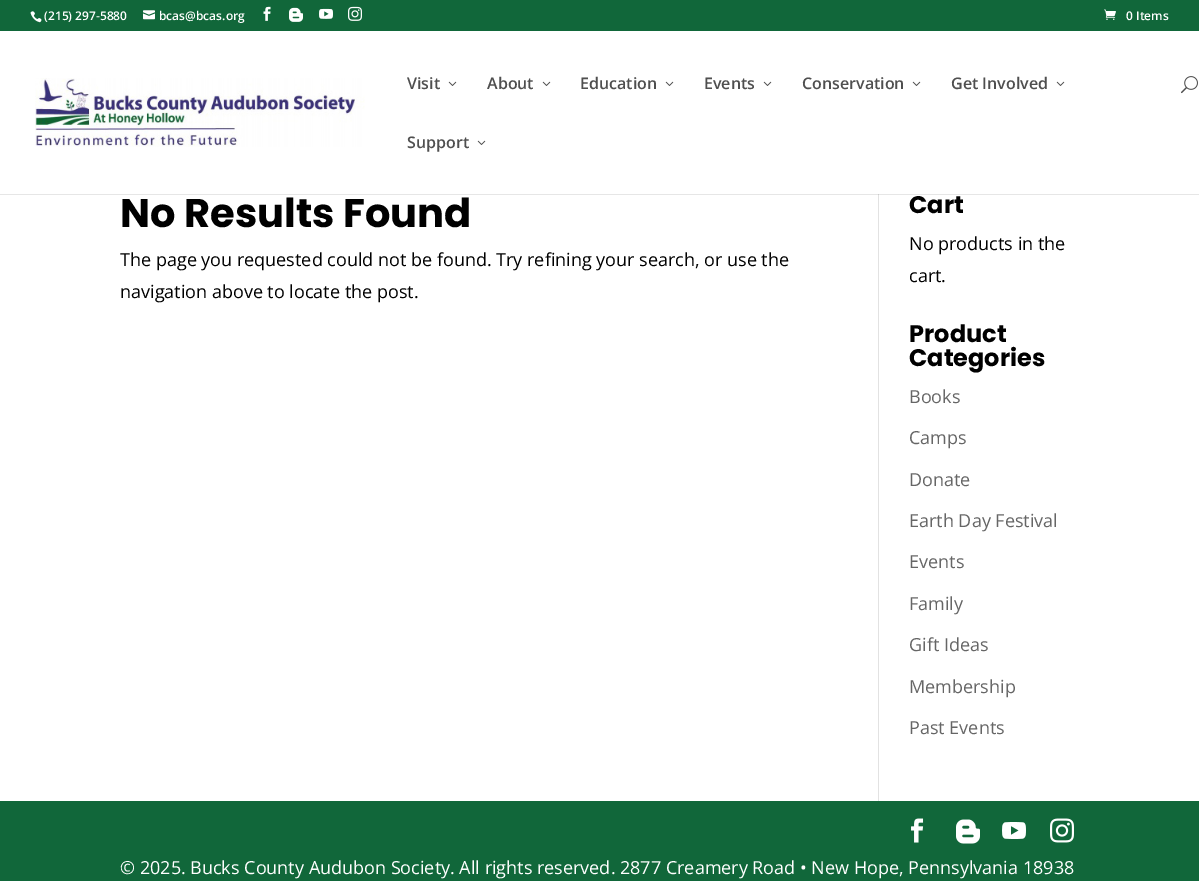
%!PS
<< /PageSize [1199 881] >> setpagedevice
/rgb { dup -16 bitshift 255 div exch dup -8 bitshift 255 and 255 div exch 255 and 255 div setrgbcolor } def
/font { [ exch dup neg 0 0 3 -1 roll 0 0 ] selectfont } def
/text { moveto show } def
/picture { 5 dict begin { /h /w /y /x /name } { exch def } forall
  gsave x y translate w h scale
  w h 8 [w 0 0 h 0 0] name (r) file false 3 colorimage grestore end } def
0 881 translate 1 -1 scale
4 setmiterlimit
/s1 { /OpenSans-SemiBold 12 font 16#FFFFFF rgb } def
/s2 { /OpenSans-SemiBold 16 font 16#4F4F4F rgb } def
/s3 { /Poppins-Bold 40 font 16#000000 rgb } def
/s4 { /OpenSans-Regular 18 font 16#000000 rgb } def
/s5 { /Poppins-Bold 24 font 16#000000 rgb } def
/s6 { /OpenSans-Regular 18 font 16#666666 rgb } def
/s7 { /OpenSans-Regular 18 font 16#FFFFFF rgb } def
16#FFFFFF rgb
0 0 1199 881 rectfill
16#E6E6E6 rgb
0 194 1199 1 rectfill
16#11673A rgb
0 0 1199 31 rectfill
(pic1.raw) 30 11 12 12 picture
s1
(\(215\) 297-5880) 44 20 text
(pic2.raw) 143 10 12 10 picture
(bcas@bcas.org) 159 20 text
(pic3.raw) 263 6 8 15 picture
(pic4.raw) 289 7 14 15 picture
(pic5.raw) 319 8 14 11 picture
(pic6.raw) 348 6 14 15 picture
(pic7.raw) 1104 9 12 11 picture
(0 Items) 1126 20 text
(pic8.raw) 35 78 330 69 picture
s2
(Visit) 407 89 text
(pic9.raw) 448 81 9 5 picture
(About) 487 89 text
(pic9.raw) 542 81 9 5 picture
(Education) 580 89 text
(pic9.raw) 665 81 9 5 picture
(Events) 704 89 text
(pic9.raw) 763 81 9 5 picture
(Conservation) 802 89 text
(pic9.raw) 912 81 9 5 picture
(Get Involved) 951 89 text
(pic9.raw) 1056 81 9 5 picture
(Support) 407 148 text
(pic9.raw) 477 140 9 5 picture
(pic10.raw) 1181 76 17 18 picture
16#E2E2E2 rgb
878 195 1 606 rectfill
16#CBCBCB rgb
878 194 1 1 rectfill
s3
(No Results Found) 120 227 text
s4
(The page you requested could not be found. Try refining your search, or use the) 120 266 text
(navigation above to locate the post.) 120 298 text
s5
(Cart) 909 213 text
s4
(No products in the) 909 250 text
(cart.) 909 282 text
s5
(Product) 909 342 text
(Categories) 909 366 text
s6
(Books) 909 403 text
(Camps) 909 444 text
(Donate) 909 486 text
(Earth Day Festival) 909 527 text
(Events) 909 568 text
(Family) 909 610 text
(Gift Ideas) 909 651 text
(Membership) 909 693 text
(Past Events) 909 734 text
16#11673A rgb
0 801 1199 80 rectfill
(pic11.raw) 911 818 13 25 picture
(pic12.raw) 956 819 24 25 picture
(pic13.raw) 1002 822 24 17 picture
(pic14.raw) 1050 818 24 25 picture
s7
(© 2025. Bucks County Audubon Society. All rights reserved. 2877 Creamery Road • New Hope, Pennsylvania 18938) 120 874 text
showpage
